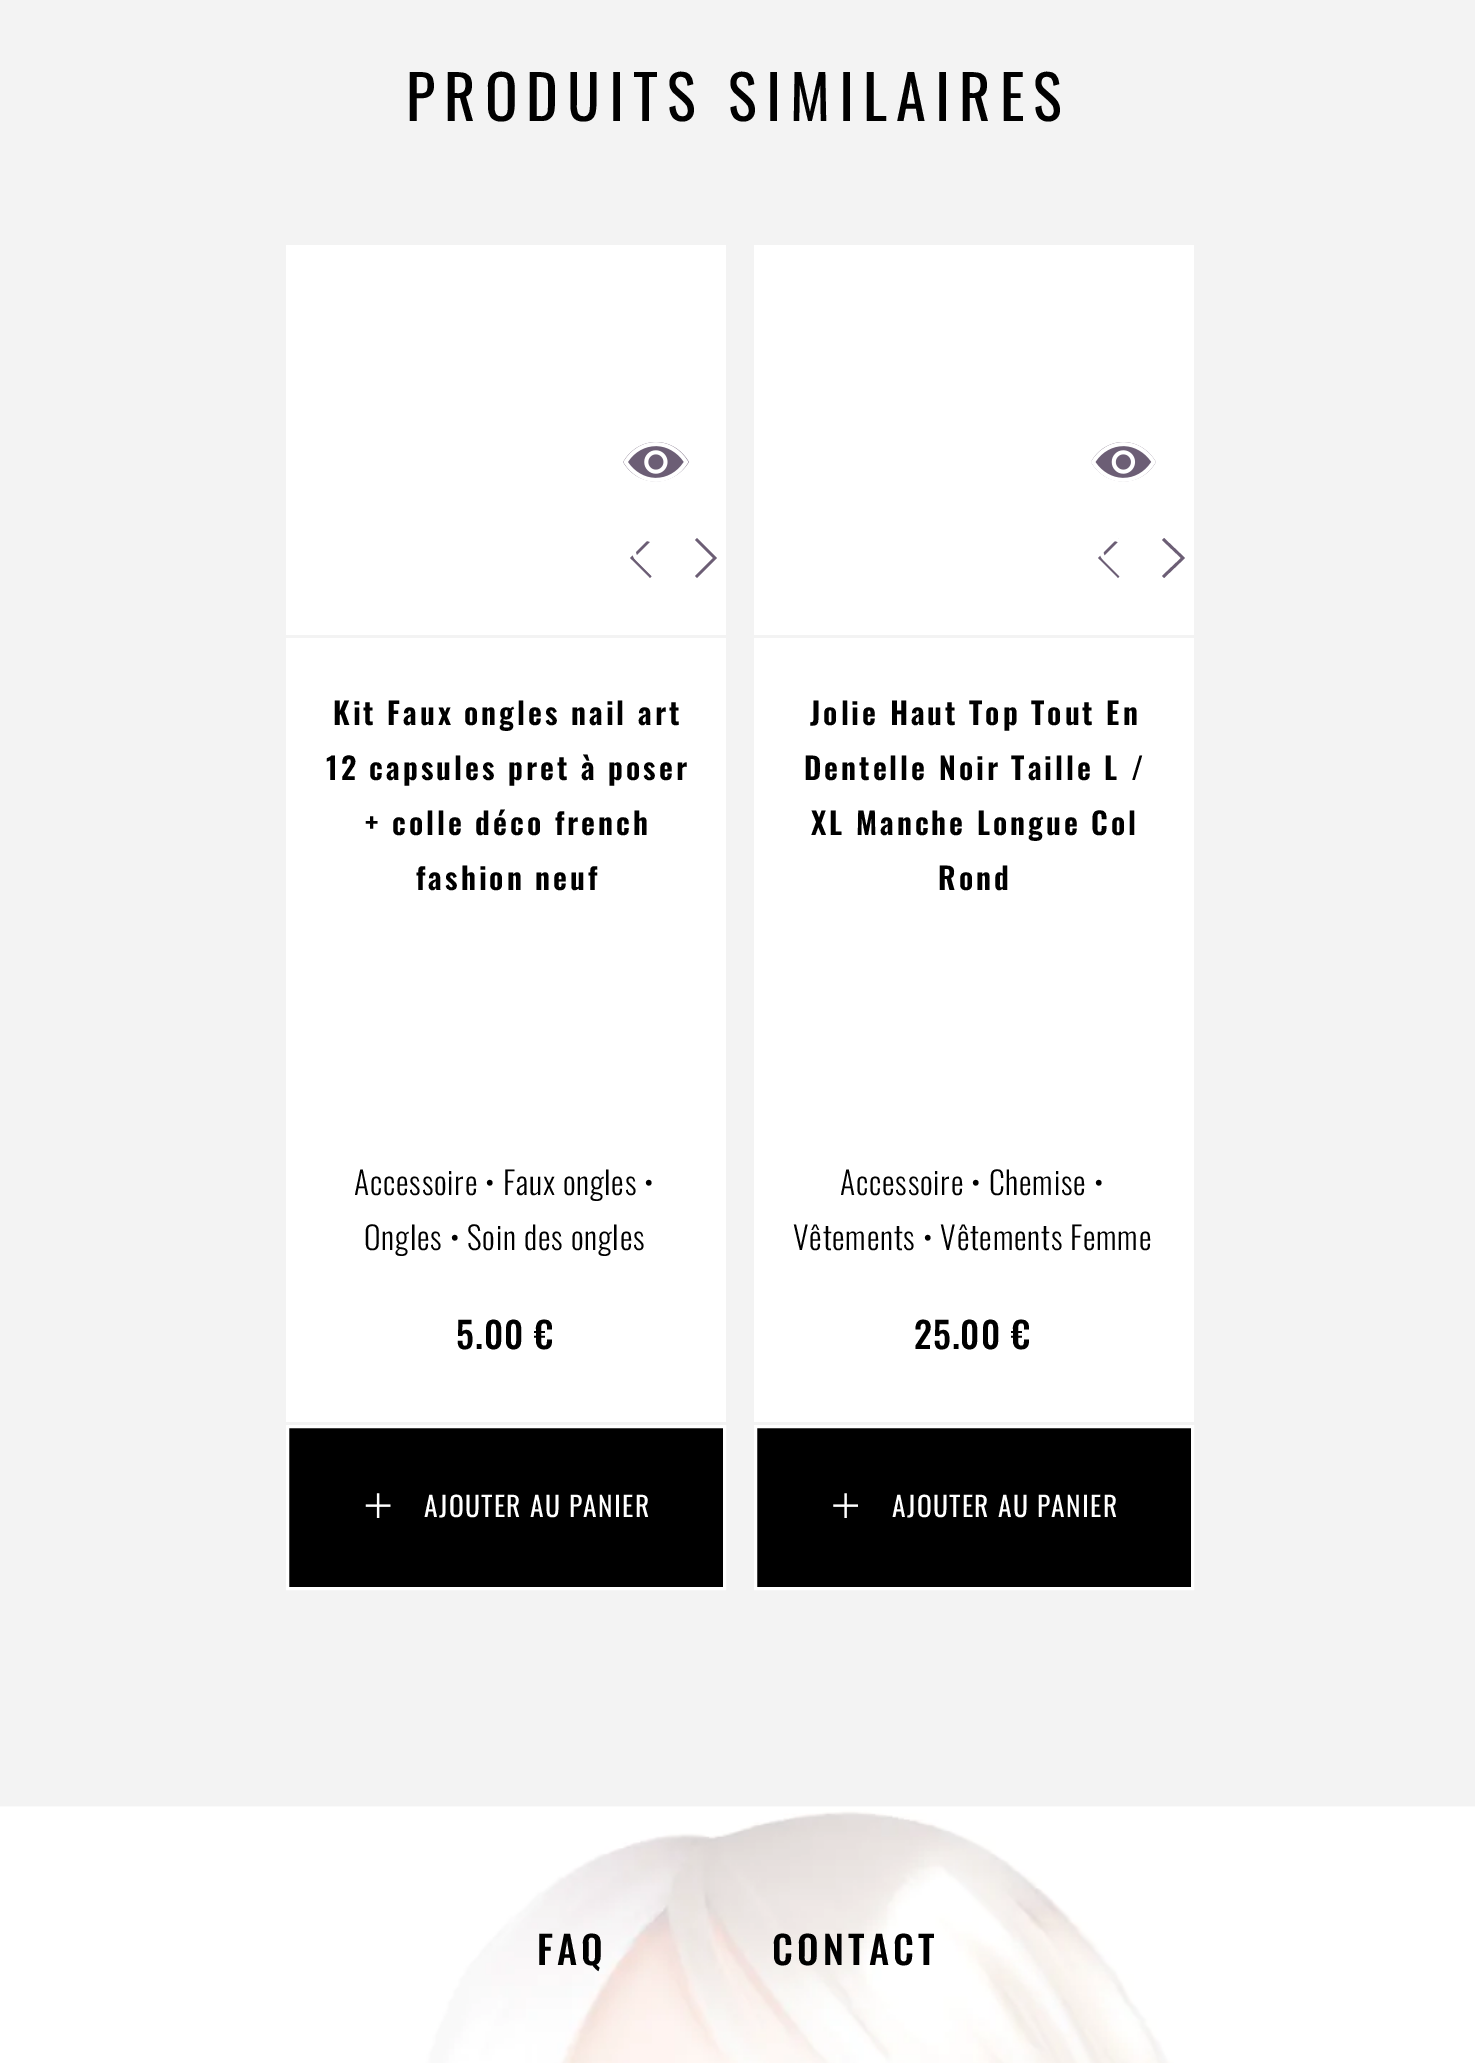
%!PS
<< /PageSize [1475 2063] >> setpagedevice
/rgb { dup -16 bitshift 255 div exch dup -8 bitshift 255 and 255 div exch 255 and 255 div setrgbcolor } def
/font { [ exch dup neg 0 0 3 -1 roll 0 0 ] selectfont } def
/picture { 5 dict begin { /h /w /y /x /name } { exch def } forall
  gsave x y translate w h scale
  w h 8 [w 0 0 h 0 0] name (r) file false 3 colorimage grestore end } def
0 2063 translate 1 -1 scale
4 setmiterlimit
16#F3F3F3 rgb
0 0 1475 2063 rectfill
/Oswald-Regular 60.5 font
16#000000 rgb
406 121 moveto 9.1 0 (PRODUITS SIMILAIRES) ashow
16#FFFFFF rgb
286 245 440 390 rectfill
16#6C5E75 rgb
656 442 moveto 670 442 682 450 689 462 curveto 673 488 638 488 623 462 curveto 630 450 642 442 656 442 curveto closepath fill
(pic1.raw) 623 442 66 40 picture
650 538 moveto 630 558 lineto 650 578 lineto 652 576 lineto 634 558 lineto 652 540 lineto closepath 697 538 moveto 717 558 lineto 697 578 lineto 695 576 lineto 713 558 lineto 695 540 lineto closepath fill
(pic2.raw) 632 538 20 39 picture
16#FFFFFF rgb
286 638 440 784 rectfill
/Oswald-SemiBold 30.25 font
16#000000 rgb
333 725 moveto 3 0 (Kit Faux ongles nail art) ashow
326 780 moveto 3 0 (12 capsules pret à poser) ashow
365 835 moveto 3 0 (+ colle déco french) ashow
416 890 moveto 3 0 (fashion neuf) ashow
/Oswald-Light 31.6 font
354 1195 moveto 0.8 0 (Accessoire • Faux ongles •) ashow
364 1250 moveto 0.8 0 (Ongles • Soin des ongles) ashow
/Oswald-Medium 36 font
456 1349 moveto 1 0 (5.00 €) ashow
287.5 1426.5 moveto 724.5 1426.5 lineto 724.5 1588.5 lineto 287.5 1588.5 lineto closepath gsave fill grestore
16#FFFFFF rgb
3 setlinewidth
stroke
(pic3.raw) 365 1493 26 25 picture
/Oswald-Regular 27.5 font
424 1517 moveto 1.4 0 (AJOUTER AU PANIER) ashow
754 245 440 390 rectfill
16#6C5E75 rgb
1123 442 moveto 1137 442 1149 450 1156 462 curveto 1141 488 1106 488 1091 462 curveto 1097 450 1110 442 1123 442 curveto closepath fill
(pic4.raw) 1091 442 65 40 picture
1118 538 moveto 1098 558 lineto 1118 578 lineto 1120 576 lineto 1102 558 lineto 1120 540 lineto closepath 1164 538 moveto 1185 558 lineto 1164 578 lineto 1162 576 lineto 1181 558 lineto 1162 540 lineto closepath fill
(pic5.raw) 1100 538 20 39 picture
16#FFFFFF rgb
754 638 440 784 rectfill
/Oswald-SemiBold 30.25 font
16#000000 rgb
810 725 moveto 3 0 (Jolie Haut Top Tout En) ashow
804 780 moveto 3 0 (Dentelle Noir Taille L /) ashow
811 835 moveto 3 0 (XL Manche Longue Col) ashow
938 890 moveto 3 0 (Rond) ashow
/Oswald-Light 31.6 font
840 1195 moveto 0.8 0 (Accessoire • Chemise •) ashow
793 1250 moveto 0.8 0 (Vêtements • Vêtements Femme) ashow
/Oswald-Medium 36 font
914 1349 moveto 1 0 (25.00 €) ashow
755.5 1426.5 moveto 1192.5 1426.5 lineto 1192.5 1588.5 lineto 755.5 1588.5 lineto closepath gsave fill grestore
16#FFFFFF rgb
stroke
(pic6.raw) 833 1493 25 25 picture
/Oswald-Regular 27.5 font
892 1517 moveto 1.4 0 (AJOUTER AU PANIER) ashow
(pic7.raw) 0 1806 1475 257 picture
/Oswald-Medium 38.5 font
16#000000 rgb
537 1965 moveto 4.25 0 (FAQ) ashow
772 1965 moveto 4.25 0 (CONTACT) ashow
showpage
